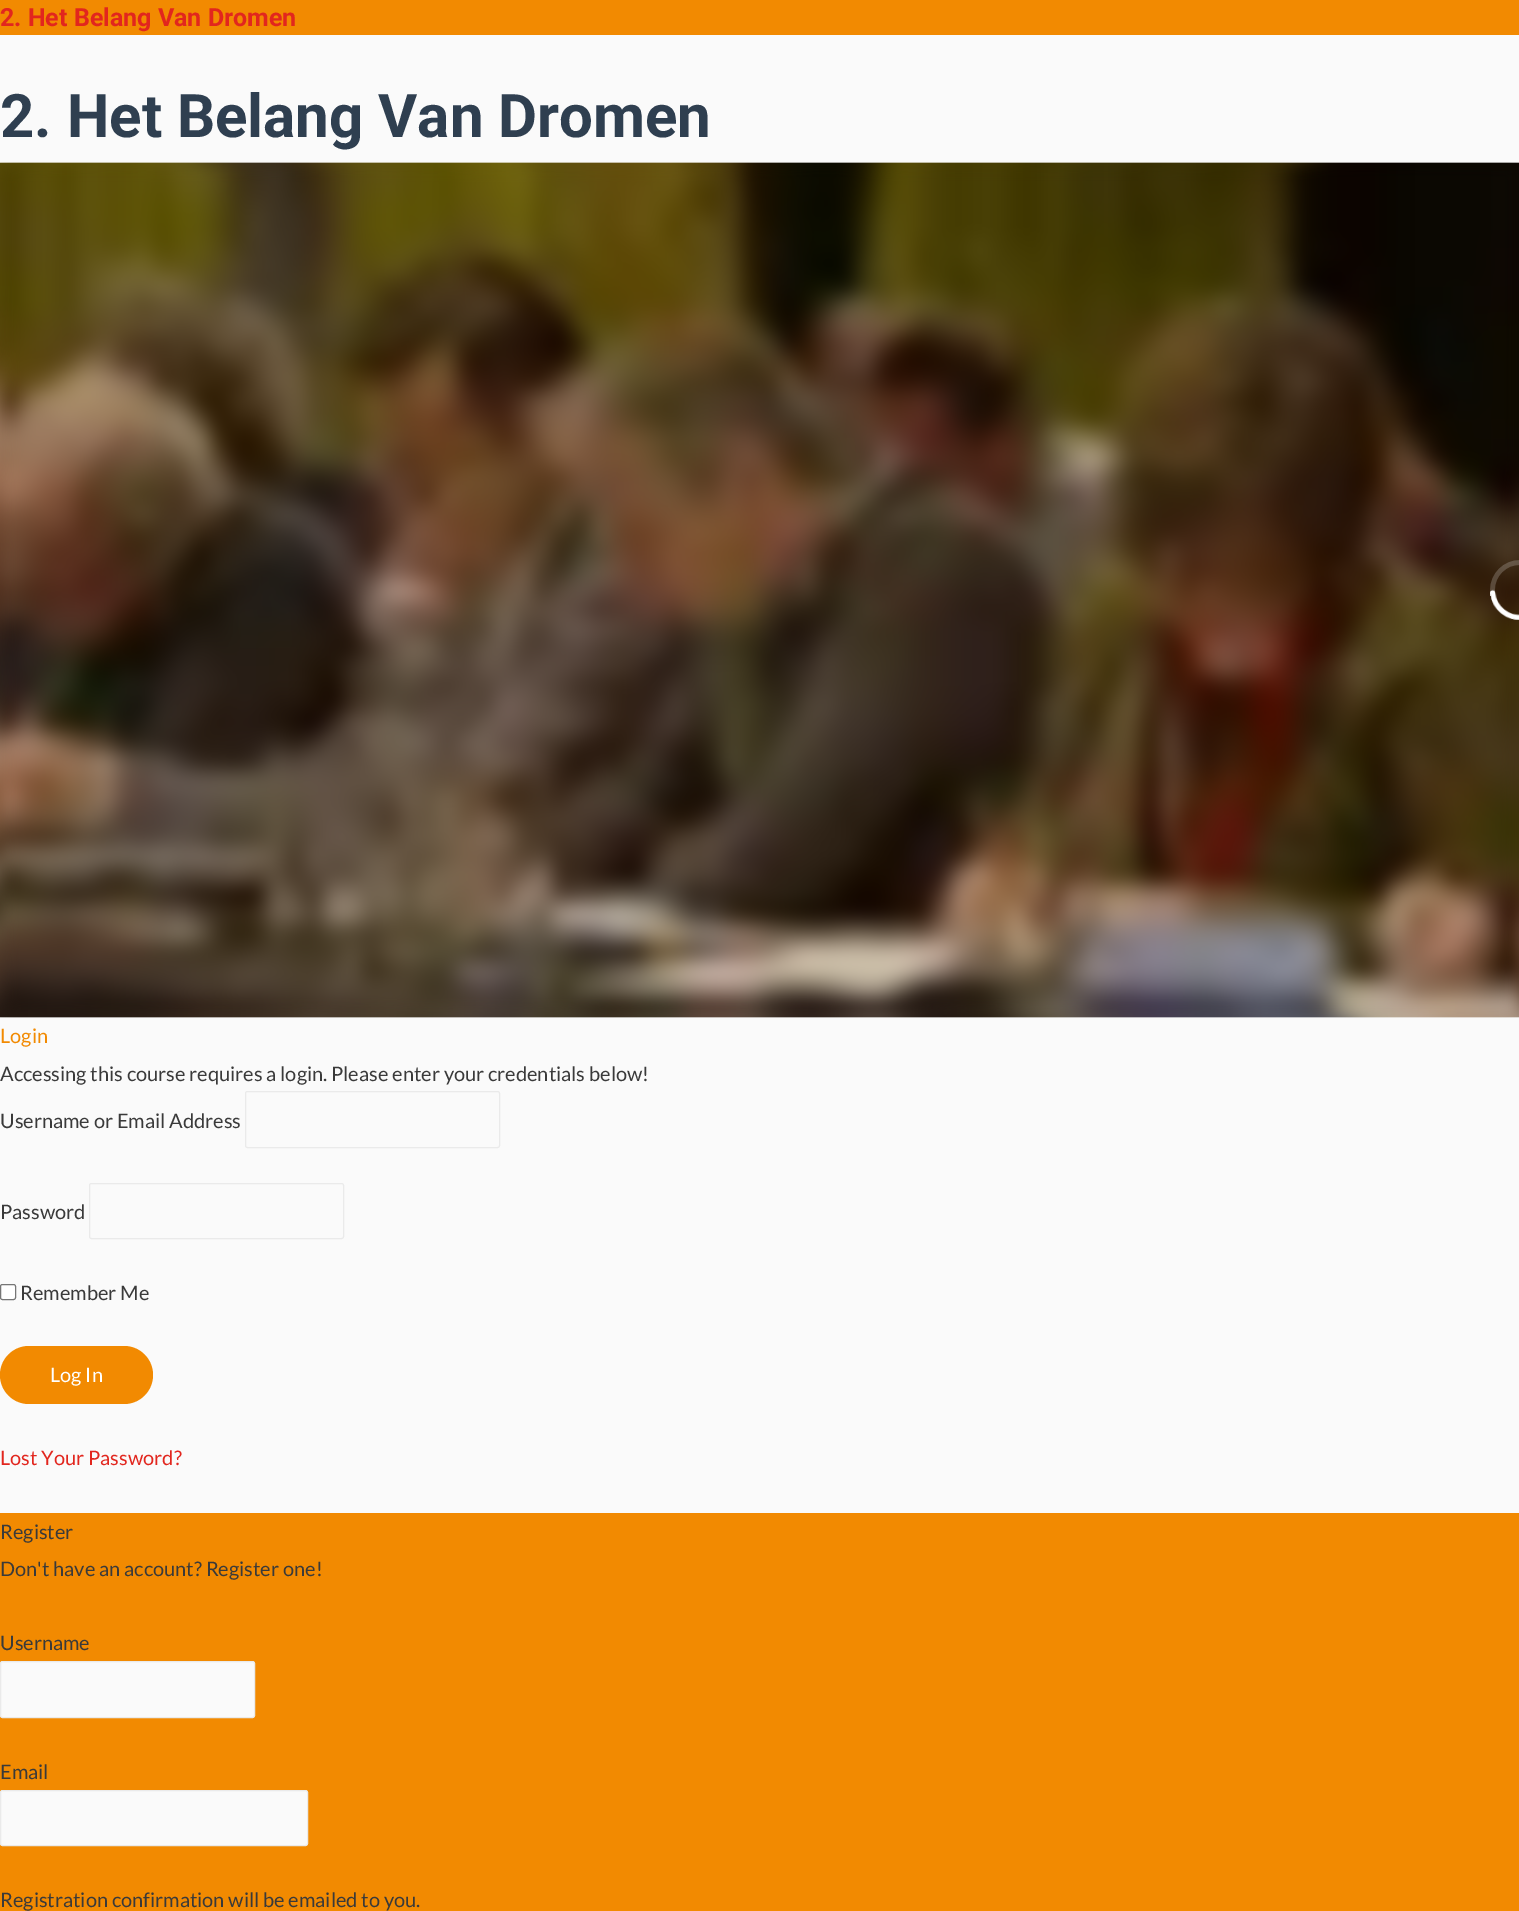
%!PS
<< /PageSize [1519 1911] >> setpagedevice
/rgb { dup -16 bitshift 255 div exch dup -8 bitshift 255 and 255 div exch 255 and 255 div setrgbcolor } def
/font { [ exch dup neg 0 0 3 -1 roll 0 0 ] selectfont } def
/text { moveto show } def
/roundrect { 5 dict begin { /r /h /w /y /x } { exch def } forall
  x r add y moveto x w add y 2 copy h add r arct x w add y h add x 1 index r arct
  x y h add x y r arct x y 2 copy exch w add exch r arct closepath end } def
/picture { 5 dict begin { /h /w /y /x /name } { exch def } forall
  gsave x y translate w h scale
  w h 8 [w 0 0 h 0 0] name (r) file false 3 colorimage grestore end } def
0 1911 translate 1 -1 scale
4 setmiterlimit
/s1 { /Roboto-Bold 25 font 16#E2261E rgb } def
/s2 { /Roboto-Bold 60 font 16#2F3F50 rgb } def
/s3 { /Lato-Regular 20 font 16#F28A01 rgb } def
/s4 { /Lato-Regular 20 font 16#3A3A3A rgb } def
/s5 { /Lato-Regular 20 font 16#FFFFFF rgb } def
/s6 { /Lato-Regular 20 font 16#E2261E rgb } def
16#FAFAFA rgb
0 0 1519 1911 rectfill
16#F28A01 rgb
0 0 1519 35 rectfill
s1
(2. Het Belang Van Dromen) 0 26 text
s2
(2. Het Belang Van Dromen) 0 137 text
(pic1.raw) 0 162 1519 856 picture
s3
(Login) 0 1043 text
s4
(Accessing this course requires a login. Please enter your credentials below!) 0 1081 text
(Username or Email Address) 0 1128 text
16#EAEAEA rgb
245.5 1091.5 254 56 2 roundrect stroke
s4
(Password) 0 1219 text
16#EAEAEA rgb
89.5 1183.5 254 55 2 roundrect stroke
16#FFFFFF rgb
0.5 1284.5 15 15 2 roundrect gsave fill grestore
16#767676 rgb
stroke
s4
(Remember Me) 20 1300 text
16#F28A01 rgb
0 1346 153 58 29 roundrect fill
s5
(Log In) 50 1382 text
s6
(Lost Your Password?) 0 1465 text
16#F28A01 rgb
0 1513 1519 398 rectfill
s4
(Register) 0 1539 text
(Don't have an account? Register one!) 0 1576 text
(Username) 0 1650 text
16#FAFAFA rgb
0.5 1661.5 254 56 2 roundrect gsave fill grestore
16#EAEAEA rgb
stroke
s4
(Email) 0 1779 text
16#FAFAFA rgb
0.5 1790.5 307 55 2 roundrect gsave fill grestore
16#EAEAEA rgb
stroke
s4
(Registration confirmation will be emailed to you.) 0 1907 text
showpage
